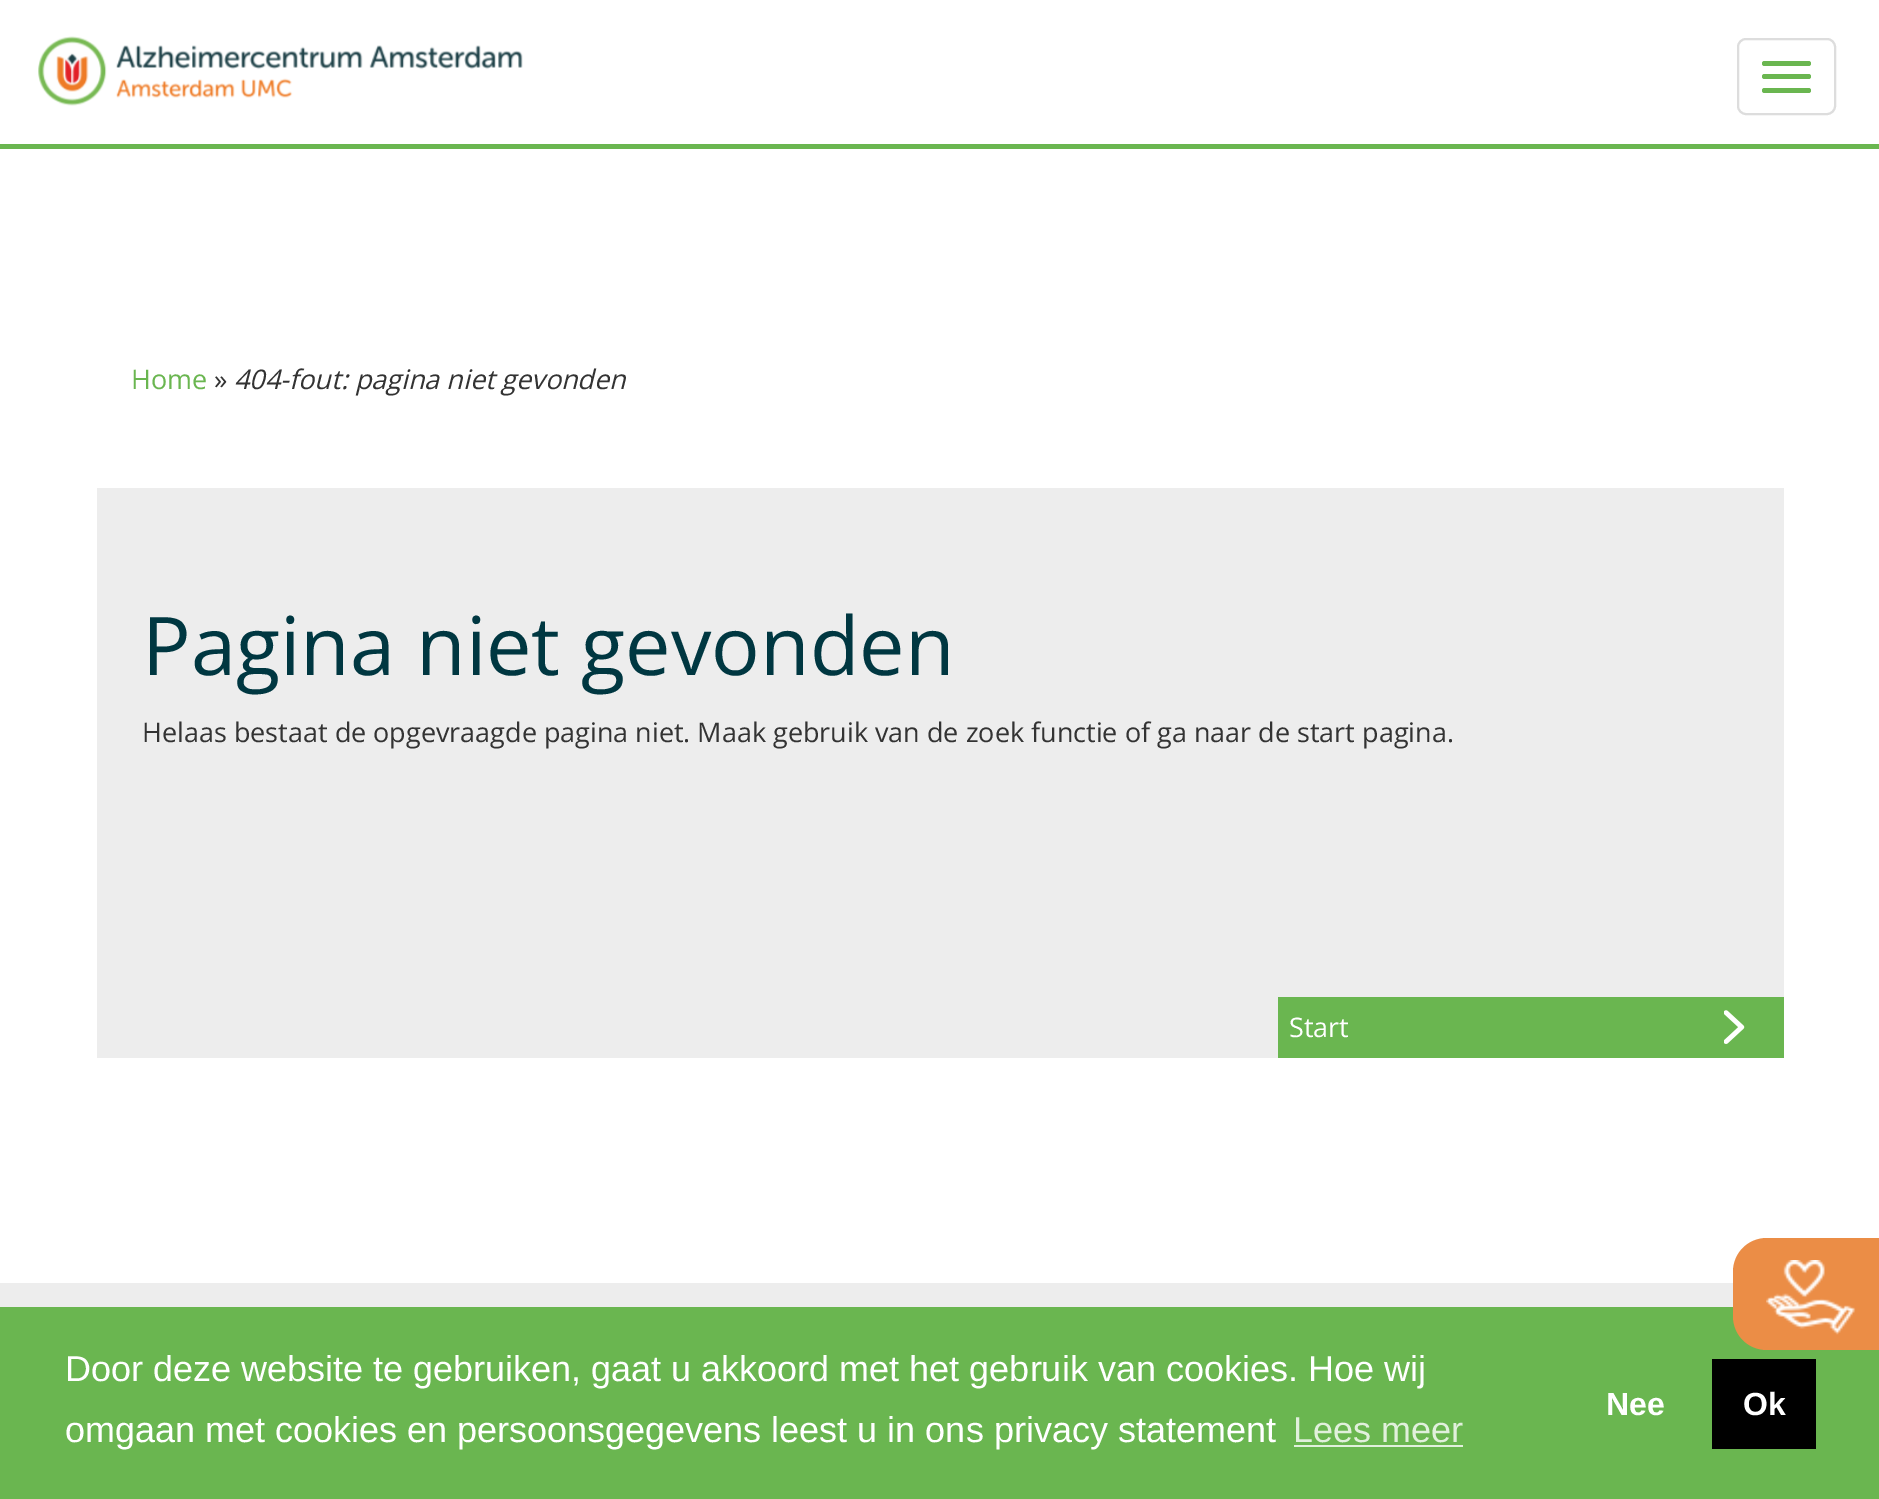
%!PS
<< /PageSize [1879 1499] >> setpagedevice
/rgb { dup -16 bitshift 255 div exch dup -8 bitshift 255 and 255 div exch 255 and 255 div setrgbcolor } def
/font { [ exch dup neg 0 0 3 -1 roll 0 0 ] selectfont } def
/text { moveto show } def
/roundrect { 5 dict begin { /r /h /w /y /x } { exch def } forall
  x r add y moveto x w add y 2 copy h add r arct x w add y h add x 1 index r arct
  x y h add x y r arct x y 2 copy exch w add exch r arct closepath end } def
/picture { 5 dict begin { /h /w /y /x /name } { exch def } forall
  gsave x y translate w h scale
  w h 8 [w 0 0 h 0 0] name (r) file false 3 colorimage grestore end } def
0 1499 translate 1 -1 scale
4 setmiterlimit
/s1 { /OpenSans-Regular 27 font 16#6AB650 rgb } def
/s2 { /OpenSans-Regular 27 font 16#333333 rgb } def
/s3 { /OpenSans-Italic 27 font 16#333333 rgb } def
/s4 { /OpenSans-Regular 81 font 16#003741 rgb } def
/s5 { /OpenSans-Regular 27 font 16#FFFFFF rgb } def
/s6 { /LiberationSans-Regular 36 font 16#FFFFFF rgb } def
/s7 { /LiberationSans-Regular 36 font 16#E1F0DC rgb } def
/s8 { /LiberationSans-Bold 32 font 16#FFFFFF rgb } def
16#FFFFFF rgb
0 0 1879 1499 rectfill
16#6AB650 rgb
0 144 1879 5 rectfill
(pic1.raw) 38 36 485 70 picture
16#DDDDDD rgb
2 setlinewidth
1738 39 97 75 8 roundrect stroke
16#6AB650 rgb
1762 61 49 5 2.5 roundrect fill
1762 74 49 5 2.5 roundrect fill
1762 88 49 5 2.5 roundrect fill
s1
(Home) 131 389 text
s2
(») 214 389 text
s3
(404-fout: pagina niet gevonden) 234 389 text
16#EDEDED rgb
97 488 1687 570 rectfill
s4
(Pagina niet gevonden) 142 675 text
s2
(Helaas bestaat de opgevraagde pagina niet. Maak gebruik van de zoek functie of ga naar de start pagina.) 142 742 text
16#6AB650 rgb
1278 997 506 61 rectfill
(pic2.raw) 1724 1010 21 34 picture
s5
(Start) 1289 1037 text
16#EDEDED rgb
0 1283 1733 24 rectfill
16#6AB650 rgb
0 1307 1879 192 rectfill
16#EB8D46 rgb
1767 1238 moveto 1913 1238 lineto 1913 1350 lineto 1767 1350 lineto 1748 1350 1733 1335 1733 1316 curveto 1733 1272 lineto 1733 1253 1748 1238 1767 1238 curveto closepath fill
(pic3.raw) 1766 1260 90 75 picture
s6
(Door deze website te gebruiken, gaat u akkoord met het gebruik van cookies. Hoe wij) 65 1381 text
(omgaan met cookies en persoonsgegevens leest u in ons privacy statement) 65 1442 text
s7
(Lees meer) 1293 1442 text
1294 1445 169 2 rectfill
s8
(Nee) 1606 1415 text
16#000000 rgb
1712 1359 104 90 rectfill
s8
(Ok) 1743 1415 text
showpage
